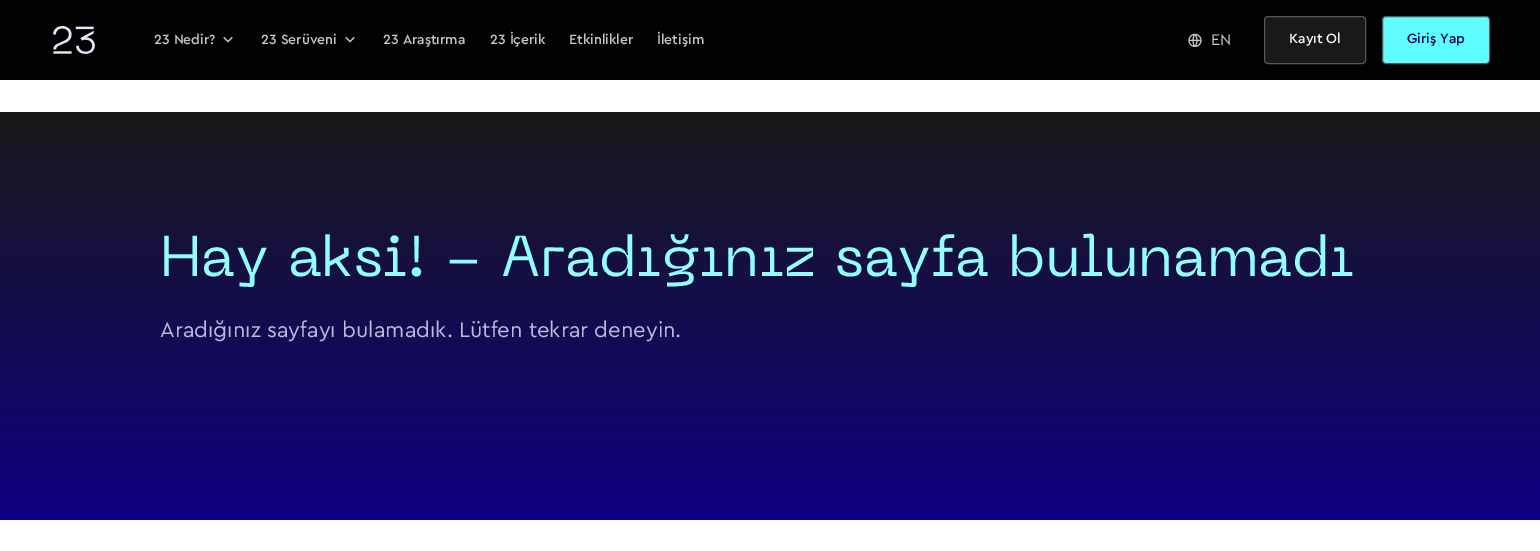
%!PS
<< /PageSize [1540 551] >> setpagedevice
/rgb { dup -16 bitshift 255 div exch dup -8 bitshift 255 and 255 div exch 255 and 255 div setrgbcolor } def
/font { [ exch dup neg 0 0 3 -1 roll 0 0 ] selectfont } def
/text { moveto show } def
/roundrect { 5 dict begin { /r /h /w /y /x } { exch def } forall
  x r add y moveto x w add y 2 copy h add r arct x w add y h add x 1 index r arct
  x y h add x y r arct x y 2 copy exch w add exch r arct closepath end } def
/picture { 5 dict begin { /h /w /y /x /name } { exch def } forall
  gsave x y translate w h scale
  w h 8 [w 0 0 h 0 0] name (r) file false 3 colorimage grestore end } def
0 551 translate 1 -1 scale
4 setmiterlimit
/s1 { /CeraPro-Medium 14 font 16#C6C6C6 rgb } def
/s2 { /CeraPro-Regular 16 font 16#C6C6C6 rgb } def
/s3 { /CeraPro-Medium 14 font 16#F6F6F6 rgb } def
/s4 { /CeraPro-Medium 14 font 16#0B0062 rgb } def
/s5 { /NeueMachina-Regular 57 font 16#92FEFF rgb } def
/s6 { /CeraPro-Regular 22 font 16#BEBAD9 rgb } def
16#FFFFFF rgb
0 0 1540 551 rectfill
16#020202 rgb
0 0 1540 80 rectfill
(pic1.raw) 53 26 42 28 picture
s1
(23 Nedir?) 154 44 text
(pic2.raw) 223 36 10 7 picture
(23 Serüveni) 261 44 text
(pic2.raw) 345 36 10 7 picture
(23 Araştırma) 383 44 text
(23 İçerik) 490 44 text
(Etkinlikler) 569 44 text
(İletişim) 657 44 text
(pic3.raw) 1188 33 14 15 picture
s2
(EN) 1211 45 text
16#191919 rgb
1264.5 16.5 101 47 3.5 roundrect gsave fill grestore
16#575757 rgb
stroke
s3
(Kayıt Ol) 1289 43 text
16#5FFDFF rgb
1382.5 16.5 107 47 3.5 roundrect gsave fill grestore
16#575757 rgb
stroke
s4
(Giriş Yap) 1407 43 text
gsave 0 112 moveto 1540 112 lineto 1540 520 lineto 0 520 lineto closepath clip newpath
<< /ShadingType 2 /ColorSpace /DeviceRGB /Coords [770 112 770 520] /Extend [true true] /Function << /FunctionType 2 /Domain [0 1] /C0 [0.098 0.098 0.098] /C1 [0.059 0 0.518] /N 1 >> >> shfill grestore
s5
(Hay aksi! - Aradığınız sayfa bulunamadı) 160 276 text
s6
(Aradığınız sayfayı bulamadık. Lütfen tekrar deneyin.) 160 337 text
showpage
